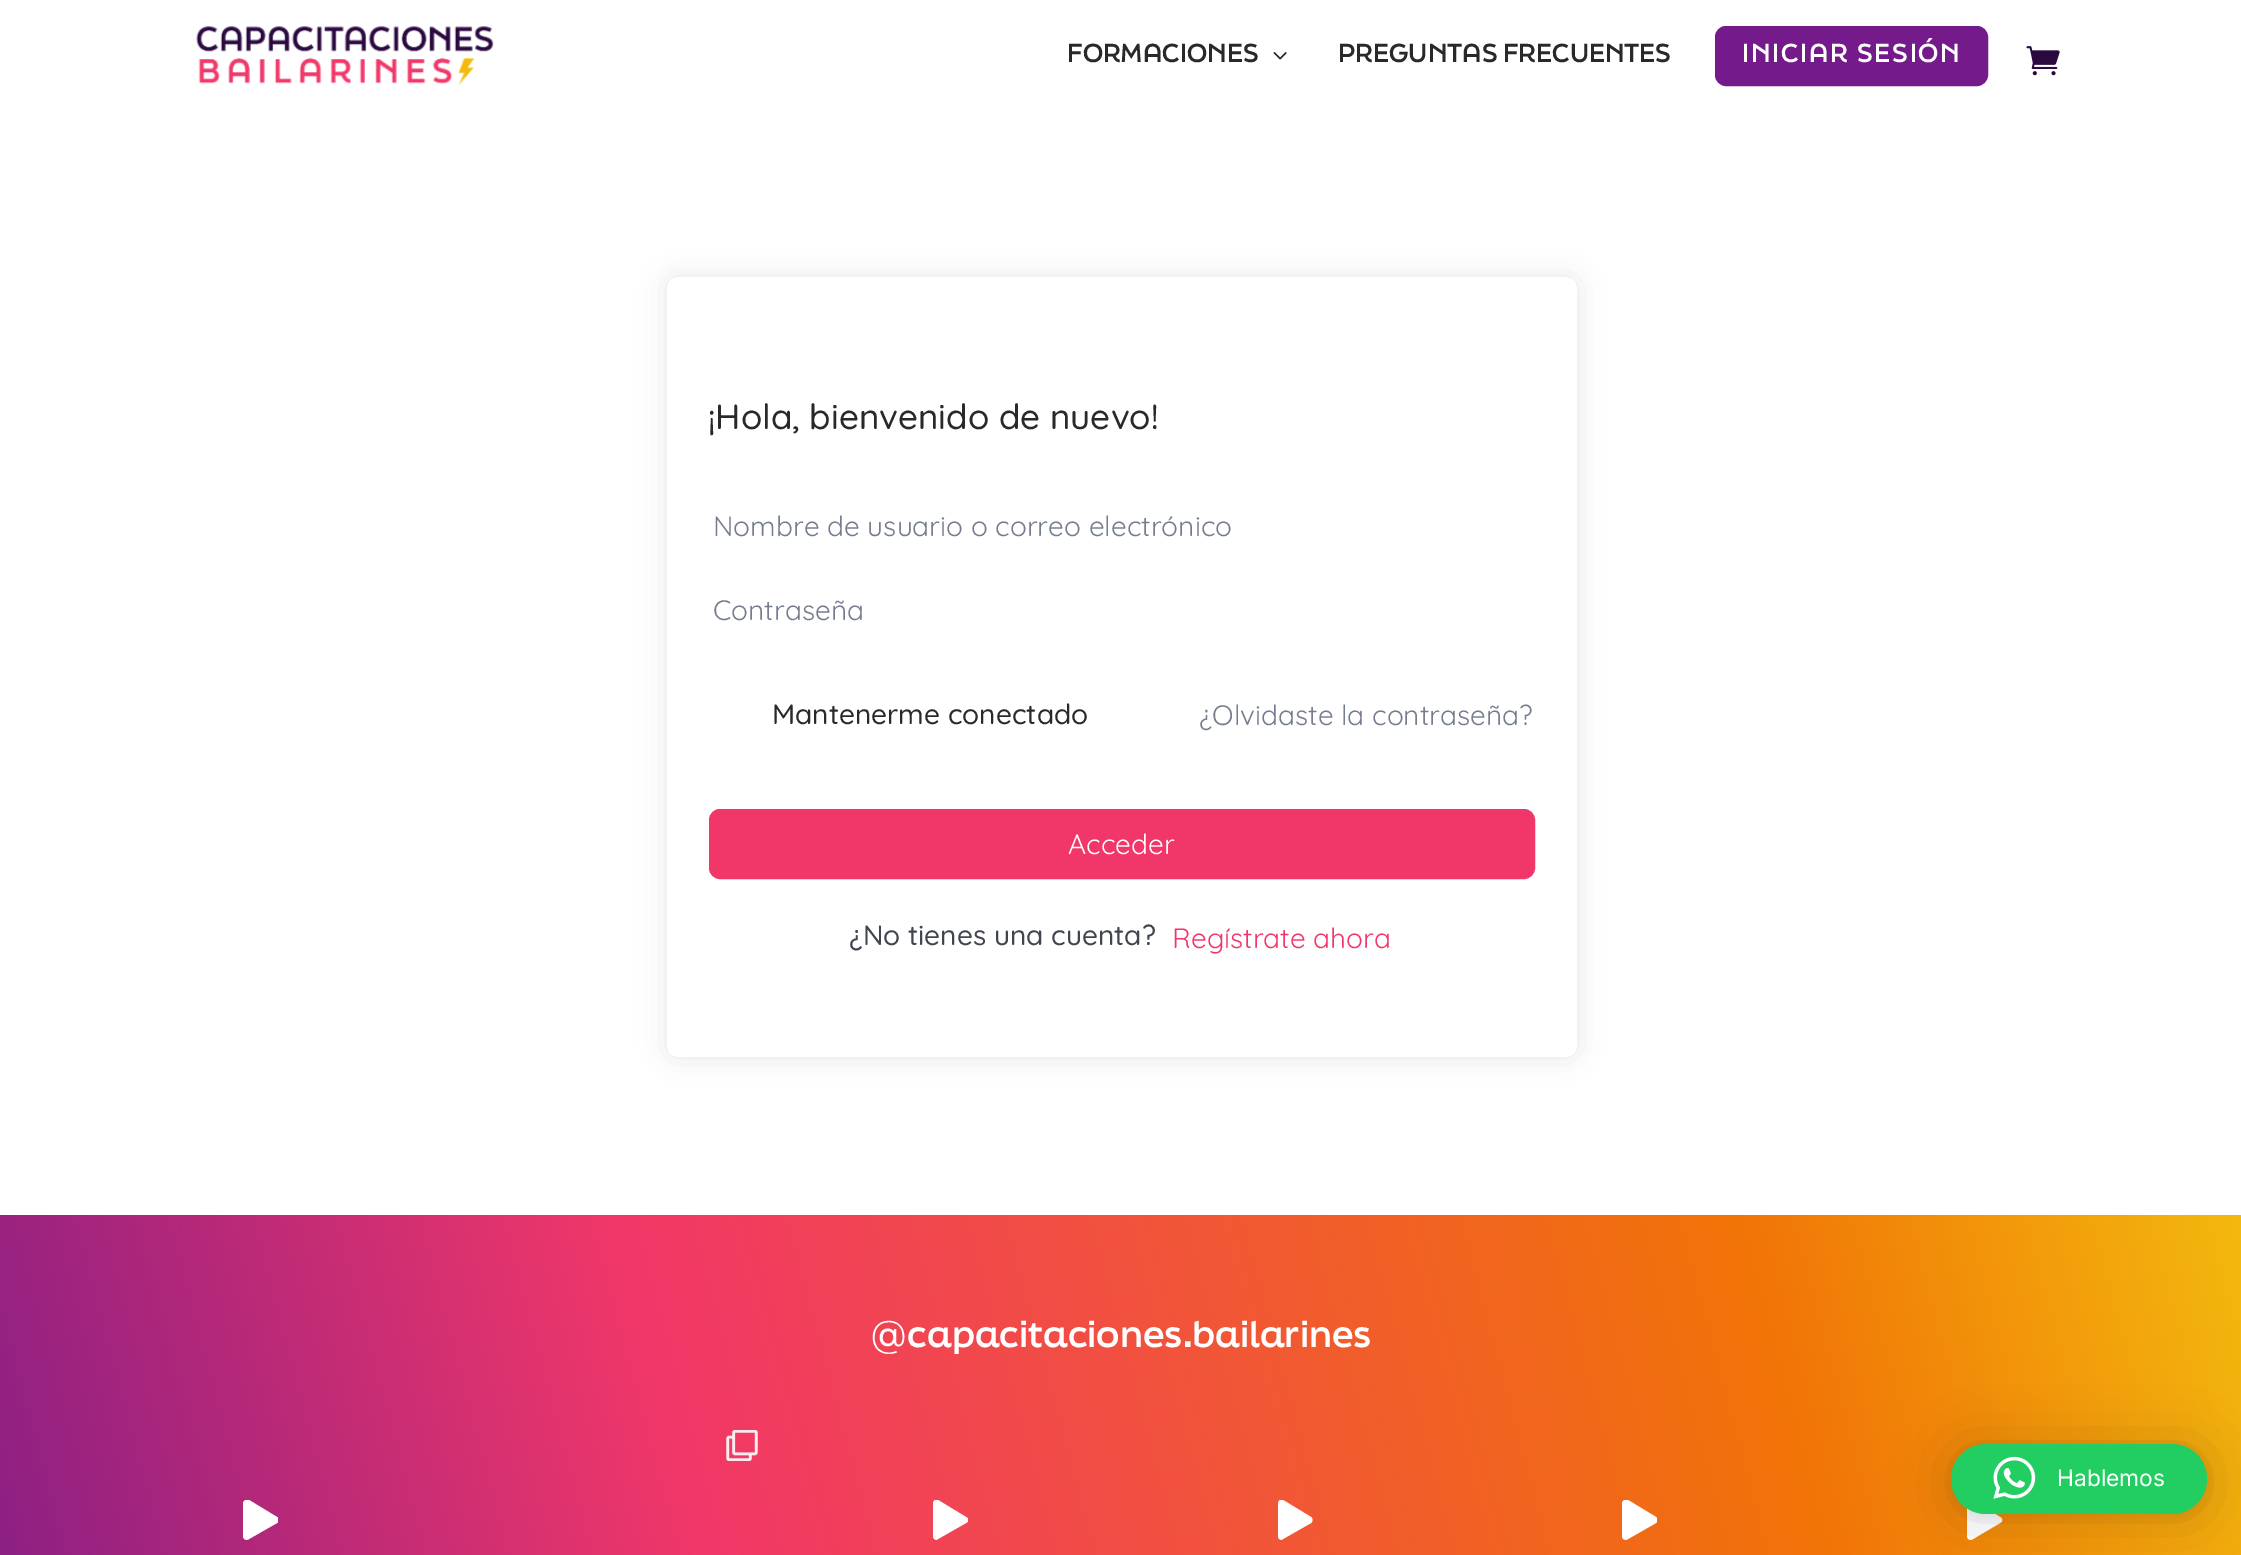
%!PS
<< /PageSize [2241 1555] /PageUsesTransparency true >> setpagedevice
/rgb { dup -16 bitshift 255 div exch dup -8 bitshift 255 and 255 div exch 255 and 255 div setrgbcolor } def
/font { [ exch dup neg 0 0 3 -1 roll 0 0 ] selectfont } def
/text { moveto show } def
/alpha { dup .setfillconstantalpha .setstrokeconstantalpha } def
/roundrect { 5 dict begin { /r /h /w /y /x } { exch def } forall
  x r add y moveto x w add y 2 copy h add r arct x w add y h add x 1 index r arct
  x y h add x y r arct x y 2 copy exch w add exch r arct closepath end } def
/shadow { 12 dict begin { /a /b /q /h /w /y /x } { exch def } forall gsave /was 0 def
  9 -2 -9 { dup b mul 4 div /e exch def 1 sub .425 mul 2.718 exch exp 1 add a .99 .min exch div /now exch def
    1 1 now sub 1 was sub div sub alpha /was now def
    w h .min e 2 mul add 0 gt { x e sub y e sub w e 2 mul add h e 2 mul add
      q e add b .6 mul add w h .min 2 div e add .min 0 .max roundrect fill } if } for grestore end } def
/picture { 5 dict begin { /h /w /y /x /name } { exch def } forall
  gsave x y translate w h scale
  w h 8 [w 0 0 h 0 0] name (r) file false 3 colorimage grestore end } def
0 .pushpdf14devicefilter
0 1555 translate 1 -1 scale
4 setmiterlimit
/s1 { /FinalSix-Bold 24.5 font 16#292929 rgb } def
/s2 { /Quicksand-Light 35 font 16#292929 rgb } def
/s3 { /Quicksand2-Light 28 font 16#757C8E rgb } def
/s4 { /Quicksand-Light 28 font 16#292929 rgb } def
/s5 { /Quicksand2-Light 28 font 16#FFFFFF rgb } def
/s6 { /Quicksand-Light 28 font 16#41454F rgb } def
/s7 { /Quicksand2-Light 28 font 16#F13769 rgb } def
/s8 { /FinalSix-Bold 35 font 16#FFFFFF rgb } def
/s9 { /Inter-Regular 22.75 font 16#FFFFFF rgb } def
16#FFFFFF rgb
0 0 2241 1555 rectfill
(pic1.raw) 196 26 298 59 picture
s1
(FORMACIONES) 1067 62 text
(pic2.raw) 1273 52 14 8 picture
(PREGUNTAS FRECUENTES) 1338 62 text
16#741A8B rgb
1716 27 271 58 10 roundrect gsave fill grestore
2 setlinewidth
stroke
16#FFFFFF rgb
1742 62 moveto 1.75 0 (INICIAR SESIÓN) ashow
(pic3.raw) 2026 46 34 30 picture
gsave
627 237 moveto 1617 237 lineto 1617 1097 lineto 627 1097 lineto closepath 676 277 moveto 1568 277 lineto 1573 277 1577 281 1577 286 curveto 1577 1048 lineto 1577 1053 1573 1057 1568 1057 curveto 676 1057 lineto 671 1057 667 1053 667 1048 curveto 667 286 lineto 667 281 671 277 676 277 curveto closepath eoclip newpath
16#000000 rgb
667 277 910 780 9 13 0.1 shadow
grestore
s2
(¡Hola, bienvenido de nuevo!) 708 429 text
s3
(Nombre de usuario o correo electrónico) 713 536 text
(Contraseña) 713 620 text
s4
(Mantenerme conectado) 772 724 text
s3
(¿Olvidaste la contraseña?) 1199 725 text
16#F13769 rgb
710 810 824 68 10 roundrect gsave fill grestore
stroke
s5
(Acceder) 1068 854 text
s6
(¿No tienes una cuenta?) 849 945 text
s7
(Regístrate ahora) 1172 948 text
gsave 0 1215 moveto 2241 1215 lineto 2241 1555 lineto 0 1555 lineto closepath clip newpath
<< /ShadingType 2 /ColorSpace /DeviceRGB /Coords [-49 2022 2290 1396] /Extend [true true] /Function << /FunctionType 3 /Domain [0 1] /Functions [<< /FunctionType 2 /Domain [0 1] /C0 [0.455 0.102 0.545] /C1 [0.945 0.216 0.412] /N 1 >> << /FunctionType 2 /Domain [0 1] /C0 [0.945 0.216 0.412] /C1 [0.945 0.455 0.027] /N 1 >> << /FunctionType 2 /Domain [0 1] /C0 [0.945 0.455 0.027] /C1 [0.953 0.725 0.055] /N 1 >>] /Bounds [0.35 0.8] /Encode [0 1 0 1 0 1] >> >> shfill grestore
s8
(@capacitaciones.bailarines) 870 1347 text
(pic4.raw) 726 1430 32 31 picture
gsave
243 1500 35 40 rectclip
277 1517 moveto 249 1500 lineto 247 1499 243 1500 243 1504 curveto 243 1536 lineto 243 1539 246 1541 249 1539 curveto 277 1523 lineto 279 1522 279 1518 277 1517 curveto closepath fill
grestore
gsave
933 1500 35 40 rectclip
966 1517 moveto 938 1500 lineto 936 1499 933 1500 933 1504 curveto 933 1536 lineto 933 1539 936 1541 938 1539 curveto 966 1523 lineto 969 1522 969 1518 966 1517 curveto closepath fill
grestore
gsave
1278 1500 35 40 rectclip
1311 1517 moveto 1283 1500 lineto 1281 1499 1278 1500 1278 1504 curveto 1278 1536 lineto 1278 1539 1281 1541 1283 1539 curveto 1311 1523 lineto 1313 1522 1313 1518 1311 1517 curveto closepath fill
grestore
gsave
1622 1500 35 40 rectclip
1656 1517 moveto 1628 1500 lineto 1626 1499 1622 1500 1622 1504 curveto 1622 1536 lineto 1622 1539 1625 1541 1628 1539 curveto 1656 1523 lineto 1658 1522 1658 1518 1656 1517 curveto closepath fill
grestore
2000 1517 moveto 1973 1500 lineto 1970 1499 1967 1500 1967 1504 curveto 1967 1536 lineto 1967 1539 1970 1541 1973 1539 curveto 2000 1523 lineto 2003 1522 2003 1518 2000 1517 curveto closepath fill
16#000000 rgb
1951 1447 256 70 35 28 0.16 shadow
1951 1446 256 70 35 5 0.06 shadow
16#22CD62 rgb
1951 1444 256 70 35 roundrect fill
(pic5.raw) 1993 1456 43 43 picture
s9
(Hablemos) 2057 1486 text
.poppdf14devicefilter showpage
